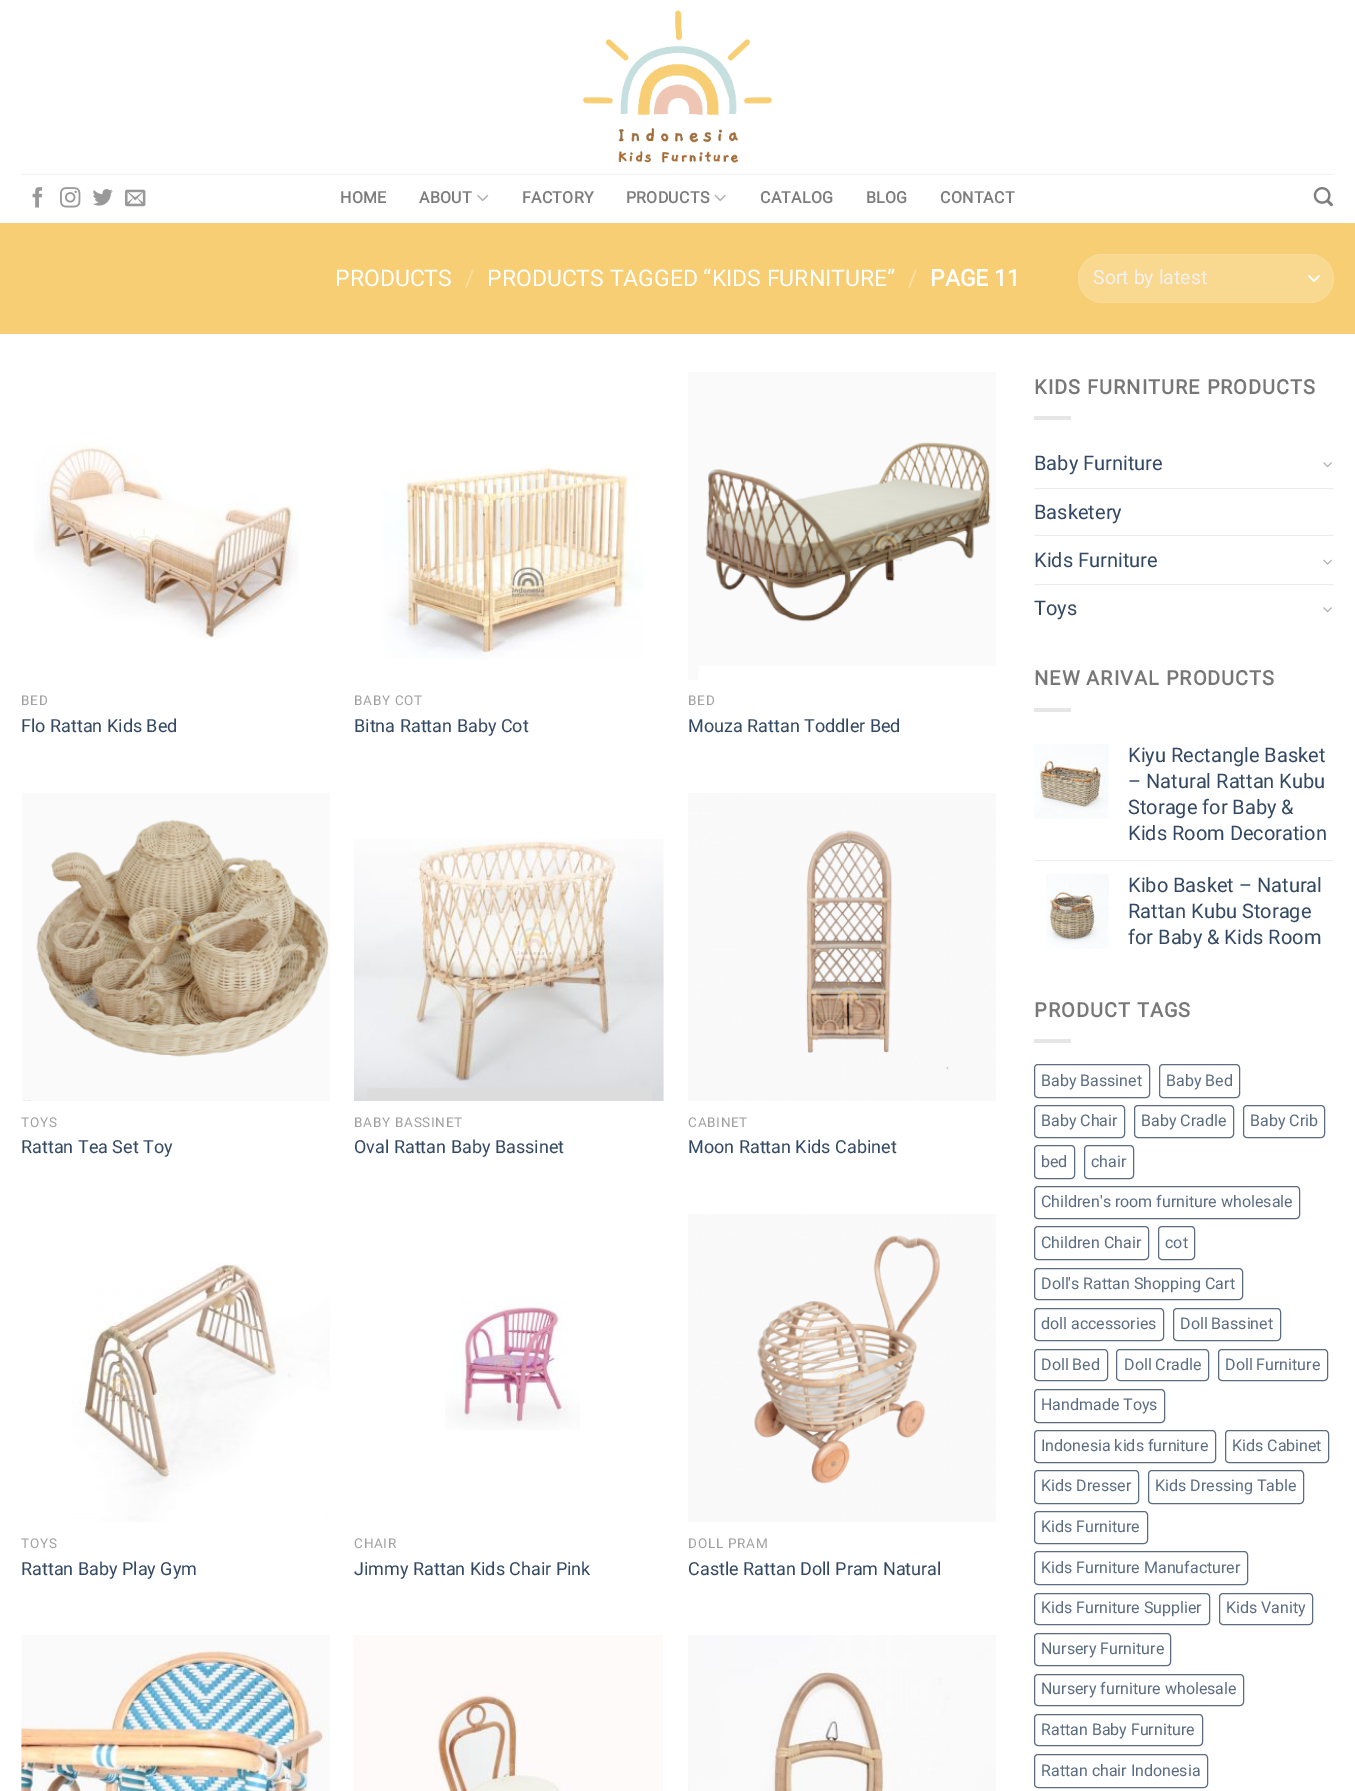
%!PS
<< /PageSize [1355 1791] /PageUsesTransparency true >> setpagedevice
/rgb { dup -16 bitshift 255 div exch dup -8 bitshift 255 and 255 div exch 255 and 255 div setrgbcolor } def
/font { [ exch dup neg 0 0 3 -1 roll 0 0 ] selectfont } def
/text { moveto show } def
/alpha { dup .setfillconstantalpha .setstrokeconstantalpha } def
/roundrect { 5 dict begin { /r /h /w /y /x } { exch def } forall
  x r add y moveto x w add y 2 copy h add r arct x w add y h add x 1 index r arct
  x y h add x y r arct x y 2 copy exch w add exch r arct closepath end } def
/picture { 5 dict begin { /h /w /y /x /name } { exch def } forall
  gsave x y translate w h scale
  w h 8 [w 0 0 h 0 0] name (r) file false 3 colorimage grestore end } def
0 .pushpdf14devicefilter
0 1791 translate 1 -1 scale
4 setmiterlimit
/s1 { /Roboto-Regular 23 font 16#FFFFFF rgb } def
/s2 { /Roboto-Regular 23 font 16#FADFA4 rgb } def
/s3 { /Roboto-Bold 23 font 16#FFFFFF rgb } def
/s4 { /Roboto-Regular 19.5 font 16#F1F1F1 rgb } def
/s5 { /Roboto-Regular 18 font 16#334862 rgb } def
/s6 { /Roboto-Regular 20 font 16#334862 rgb } def
/s7 { /Roboto-Regular 16 font 16#5C6D81 rgb } def
16#FFFFFF rgb
0 0 1355 1791 rectfill
(pic1.raw) 583 10 189 153 picture
16#F1F1F1 rgb
21 174 1313 1 rectfill
(pic2.raw) 32 187 11 21 picture
(pic3.raw) 60 187 21 21 picture
(pic4.raw) 92 189 21 17 picture
(pic5.raw) 125 189 21 18 picture
/Roboto-Bold 16 font
16#7D7D7D rgb
340 203 moveto 0.25 0 (HOME) ashow
419 203 moveto 0.25 0 (ABOUT) ashow
(pic6.raw) 477 194 12 8 picture
522 203 moveto 0.25 0 (FACTORY) ashow
626 203 moveto 0.25 0 (PRODUCTS) ashow
(pic7.raw) 714 194 12 8 picture
760 203 moveto 0.25 0 (CATALOG) ashow
866 203 moveto 0.25 0 (BLOG) ashow
940 203 moveto 0.25 0 (CONTACT) ashow
(pic8.raw) 1313 187 20 20 picture
16#F7CE73 rgb
0 223 1355 111 rectfill
s1
(PRODUCTS) 335 286 text
s2
(/) 465 286 text
s1
(PRODUCTS TAGGED “KIDS FURNITURE”) 487 286 text
s2
(/) 908 286 text
s3
(PAGE 11) 930 286 text
16#F9D88F rgb
1078 254 256 49 24.5 roundrect fill
16#FFFFFF rgb
1.7 setlinewidth
1 setlinecap
1 setlinejoin
1309 276 moveto 1314 281 lineto 1319 276 lineto stroke
0.09 alpha
1 setlinewidth
0 setlinecap
0 setlinejoin
1078.5 254.5 255 48 24 roundrect stroke
1 alpha
s4
(Sort by latest) 1093 284 text
(pic9.raw) 34 437 265 204 picture
/Roboto-Regular 13.5 font
16#A0A0A0 rgb
21 705 moveto 0.75 0 (BED) ashow
s5
(Flo Rattan Kids Bed) 21 732 text
(pic10.raw) 383 465 261 194 picture
/Roboto-Regular 13.5 font
16#A0A0A0 rgb
354 705 moveto 0.75 0 (BABY COT) ashow
s5
(Bitna Rattan Baby Cot) 354 732 text
(pic11.raw) 688 372 308 308 picture
/Roboto-Regular 13.5 font
16#A0A0A0 rgb
688 705 moveto 0.75 0 (BED) ashow
s5
(Mouza Rattan Toddler Bed) 688 732 text
(pic12.raw) 22 793 308 308 picture
/Roboto-Regular 13.5 font
16#A0A0A0 rgb
21 1127 moveto 0.75 0 (TOYS) ashow
s5
(Rattan Tea Set Toy) 21 1153 text
(pic13.raw) 354 839 310 262 picture
/Roboto-Regular 13.5 font
16#A0A0A0 rgb
354 1127 moveto 0.75 0 (BABY BASSINET) ashow
s5
(Oval Rattan Baby Bassinet) 354 1153 text
(pic14.raw) 688 793 308 308 picture
/Roboto-Regular 13.5 font
16#A0A0A0 rgb
688 1127 moveto 0.75 0 (CABINET) ashow
s5
(Moon Rattan Kids Cabinet) 688 1153 text
(pic15.raw) 72 1263 258 259 picture
/Roboto-Regular 13.5 font
16#A0A0A0 rgb
21 1548 moveto 0.75 0 (TOYS) ashow
s5
(Rattan Baby Play Gym) 21 1575 text
(pic16.raw) 445 1299 135 131 picture
/Roboto-Regular 13.5 font
16#A0A0A0 rgb
354 1548 moveto 0.75 0 (CHAIR) ashow
s5
(Jimmy Rattan Kids Chair Pink) 354 1575 text
(pic17.raw) 688 1214 308 308 picture
/Roboto-Regular 13.5 font
16#A0A0A0 rgb
688 1548 moveto 0.75 0 (DOLL PRAM) ashow
s5
(Castle Rattan Doll Pram Natural) 688 1575 text
(pic18.raw) 21 1635 309 156 picture
(pic19.raw) 354 1635 309 156 picture
(pic20.raw) 688 1635 308 156 picture
/Roboto-Bold 20 font
16#777777 rgb
1034 394 moveto 1 0 (KIDS FURNITURE PRODUCTS) ashow
16#E6E6E6 rgb
1034 416 37 4 rectfill
s6
(Baby Furniture) 1034 470 text
(pic21.raw) 1323 462 9 6 picture
16#ECECEC rgb
1034 488 300 1 rectfill
s6
(Basketery) 1034 519 text
16#ECECEC rgb
1034 535 300 1 rectfill
s6
(Kids Furniture) 1034 567 text
(pic22.raw) 1323 559 9 6 picture
16#ECECEC rgb
1034 584 300 1 rectfill
s6
(Toys) 1034 615 text
(pic21.raw) 1323 607 9 6 picture
/Roboto-Bold 20 font
16#777777 rgb
1034 685 moveto 1 0 (NEW ARIVAL PRODUCTS) ashow
16#E6E6E6 rgb
1034 708 37 4 rectfill
(pic23.raw) 1034 744 75 75 picture
s6
(Kiyu Rectangle Basket) 1128 762 text
(– Natural Rattan Kubu) 1128 788 text
(Storage for Baby &) 1128 814 text
(Kids Room Decoration) 1128 840 text
16#ECECEC rgb
1034 860 300 1 rectfill
(pic24.raw) 1046 874 63 75 picture
s6
(Kibo Basket – Natural) 1128 892 text
(Rattan Kubu Storage) 1128 918 text
(for Baby & Kids Room) 1128 944 text
/Roboto-Bold 20 font
16#777777 rgb
1034 1017 moveto 1 0 (PRODUCT TAGS) ashow
16#E6E6E6 rgb
1034 1039 37 4 rectfill
16#5C6D81 rgb
1034.5 1064.5 115 33 3.5 roundrect stroke
s7
(Baby Bassinet) 1041 1086 text
1159.5 1064.5 80 33 3.5 roundrect stroke
(Baby Bed) 1166 1086 text
1034.5 1105.5 90 32 3.5 roundrect stroke
(Baby Chair) 1041 1126 text
1134.5 1105.5 99 32 3.5 roundrect stroke
(Baby Cradle) 1141 1126 text
1243.5 1105.5 81 32 3.5 roundrect stroke
(Baby Crib) 1250 1126 text
1034.5 1145.5 40 33 3.5 roundrect stroke
(bed) 1041 1167 text
1084.5 1145.5 49 33 3.5 roundrect stroke
(chair) 1091 1167 text
1034.5 1186.5 265 32 3.5 roundrect stroke
(Children's room furniture wholesale) 1041 1207 text
1034.5 1226.5 114 33 3.5 roundrect stroke
(Children Chair) 1041 1248 text
1158.5 1226.5 36 33 3.5 roundrect stroke
(cot) 1165 1248 text
1034.5 1268.5 208 31 3.5 roundrect stroke
(Doll's Rattan Shopping Cart) 1041 1289 text
1034.5 1308.5 129 32 3.5 roundrect stroke
(doll accessories) 1041 1329 text
1173.5 1308.5 107 32 3.5 roundrect stroke
(Doll Bassinet) 1180 1329 text
1034.5 1349.5 73 31 3.5 roundrect stroke
(Doll Bed) 1041 1370 text
1116.5 1349.5 92 31 3.5 roundrect stroke
(Doll Cradle) 1124 1370 text
1218.5 1349.5 109 31 3.5 roundrect stroke
(Doll Furniture) 1225 1370 text
1034.5 1389.5 130 33 3.5 roundrect stroke
(Handmade Toys) 1041 1410 text
1034.5 1430.5 181 32 3.5 roundrect stroke
(Indonesia kids furniture) 1041 1451 text
1225.5 1430.5 103 32 3.5 roundrect stroke
(Kids Cabinet) 1232 1451 text
1034.5 1470.5 104 33 3.5 roundrect stroke
(Kids Dresser) 1041 1491 text
1148.5 1470.5 155 33 3.5 roundrect stroke
(Kids Dressing Table) 1155 1491 text
1034.5 1511.5 113 32 3.5 roundrect stroke
(Kids Furniture) 1041 1532 text
1034.5 1551.5 213 33 3.5 roundrect stroke
(Kids Furniture Manufacturer) 1041 1573 text
1034.5 1593.5 175 31 3.5 roundrect stroke
(Kids Furniture Supplier) 1041 1613 text
1219.5 1593.5 93 31 3.5 roundrect stroke
(Kids Vanity) 1226 1613 text
1034.5 1633.5 136 32 3.5 roundrect stroke
(Nursery Furniture) 1041 1654 text
1034.5 1674.5 209 31 3.5 roundrect stroke
(Nursery furniture wholesale) 1041 1694 text
1034.5 1714.5 168 31 3.5 roundrect stroke
(Rattan Baby Furniture) 1041 1735 text
1034.5 1754.5 173 33 3.5 roundrect stroke
(Rattan chair Indonesia) 1041 1776 text
.poppdf14devicefilter showpage
